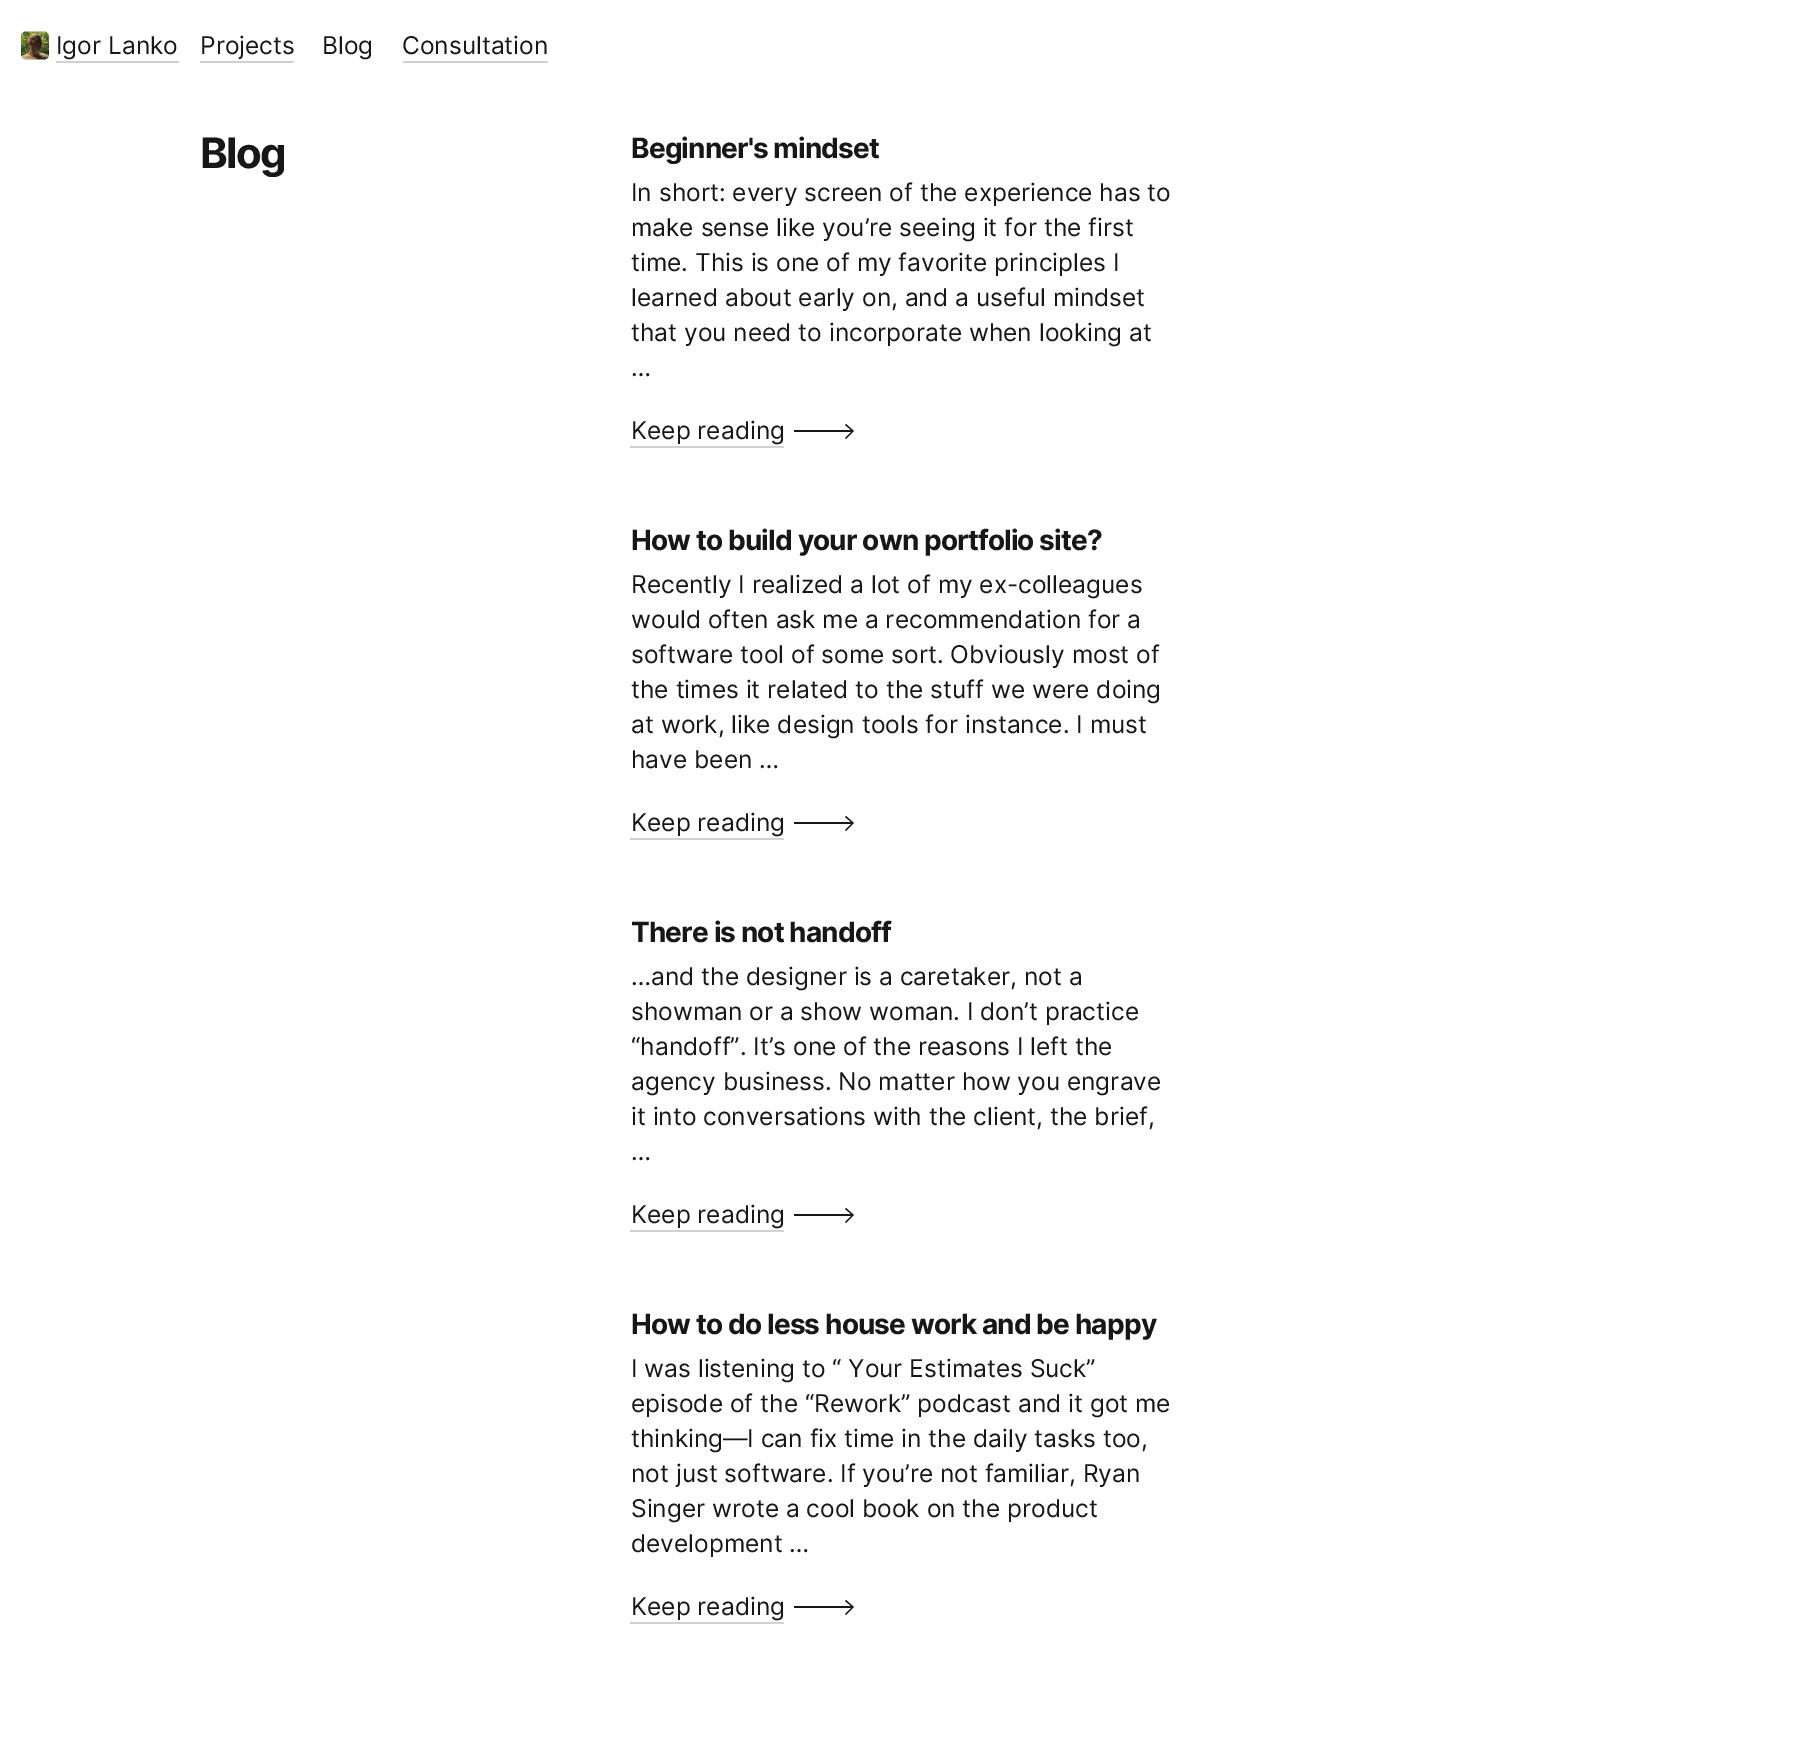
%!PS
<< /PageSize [1807 1740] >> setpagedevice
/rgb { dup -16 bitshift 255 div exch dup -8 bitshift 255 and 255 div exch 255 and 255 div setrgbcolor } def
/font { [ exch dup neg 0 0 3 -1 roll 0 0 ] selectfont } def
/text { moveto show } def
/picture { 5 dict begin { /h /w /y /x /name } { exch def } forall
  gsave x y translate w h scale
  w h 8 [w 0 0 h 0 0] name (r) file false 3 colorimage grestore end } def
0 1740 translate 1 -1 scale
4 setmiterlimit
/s1 { /Inter-Regular 24.5 font 16#171717 rgb } def
16#FFFFFF rgb
0 0 1807 1740 rectfill
(pic1.raw) 21 31 28 29 picture
s1
(Igor Lanko) 56 54 text
16#D1D1D1 rgb
56 61 123 2 rectfill
s1
(Projects) 200 54 text
16#D1D1D1 rgb
200 61 94 2 rectfill
s1
(Blog) 322 54 text
(Consultation) 402 54 text
16#D1D1D1 rgb
403 61 145 2 rectfill
/Inter-Bold 42 font
16#171717 rgb
200 168 moveto -1.5 0 (Blog) ashow
/Inter-Bold 28 font
631 158 moveto -0.85 0 (Beginner's mindset) ashow
s1
(In short: every screen of the experience has to) 631 201 text
(make sense like you’re seeing it for the first) 631 236 text
(time. This is one of my favorite principles I) 631 271 text
(learned about early on, and a useful mindset) 631 306 text
(that you need to incorporate when looking at) 631 341 text
(…) 631 376 text
(Keep reading) 631 439 text
16#D1D1D1 rgb
630 446 154 2 rectfill
16#171717 rgb
846 439 moveto 845 438 lineto 851 432 lineto 794 432 lineto 794 430 lineto 851 430 lineto 845 425 lineto 846 424 lineto 854 431 lineto closepath fill
/Inter-Bold 28 font
631 550 moveto -0.85 0 (How to build your own portfolio site?) ashow
s1
(Recently I realized a lot of my ex-colleagues) 631 593 text
(would often ask me a recommendation for a) 631 628 text
(software tool of some sort. Obviously most of) 631 663 text
(the times it related to the stuff we were doing) 631 698 text
(at work, like design tools for instance. I must) 631 733 text
(have been …) 631 768 text
(Keep reading) 631 831 text
16#D1D1D1 rgb
630 838 154 2 rectfill
16#171717 rgb
846 831 moveto 845 830 lineto 851 824 lineto 794 824 lineto 794 822 lineto 851 822 lineto 845 817 lineto 846 816 lineto 854 823 lineto closepath fill
/Inter-Bold 28 font
631 942 moveto -0.85 0 (There is not handoff) ashow
s1
(…and the designer is a caretaker, not a) 631 985 text
(showman or a show woman. I don’t practice) 631 1020 text
(“handoff”. It’s one of the reasons I left the) 631 1055 text
(agency business. No matter how you engrave) 631 1090 text
(it into conversations with the client, the brief,) 631 1125 text
(…) 631 1160 text
(Keep reading) 631 1223 text
16#D1D1D1 rgb
630 1230 154 2 rectfill
16#171717 rgb
846 1223 moveto 845 1222 lineto 851 1216 lineto 794 1216 lineto 794 1214 lineto 851 1214 lineto 845 1209 lineto 846 1208 lineto 854 1215 lineto closepath fill
/Inter-Bold 28 font
631 1334 moveto -0.85 0 (How to do less house work and be happy) ashow
s1
(I was listening to “ Your Estimates Suck”) 631 1377 text
(episode of the “Rework” podcast and it got me) 631 1412 text
(thinking—I can fix time in the daily tasks too,) 631 1447 text
(not just software. If you’re not familiar, Ryan) 631 1482 text
(Singer wrote a cool book on the product) 631 1517 text
(development …) 631 1552 text
(Keep reading) 631 1615 text
16#D1D1D1 rgb
630 1622 154 2 rectfill
16#171717 rgb
846 1615 moveto 845 1614 lineto 851 1608 lineto 794 1608 lineto 794 1606 lineto 851 1606 lineto 845 1601 lineto 846 1600 lineto 854 1607 lineto closepath fill
showpage
